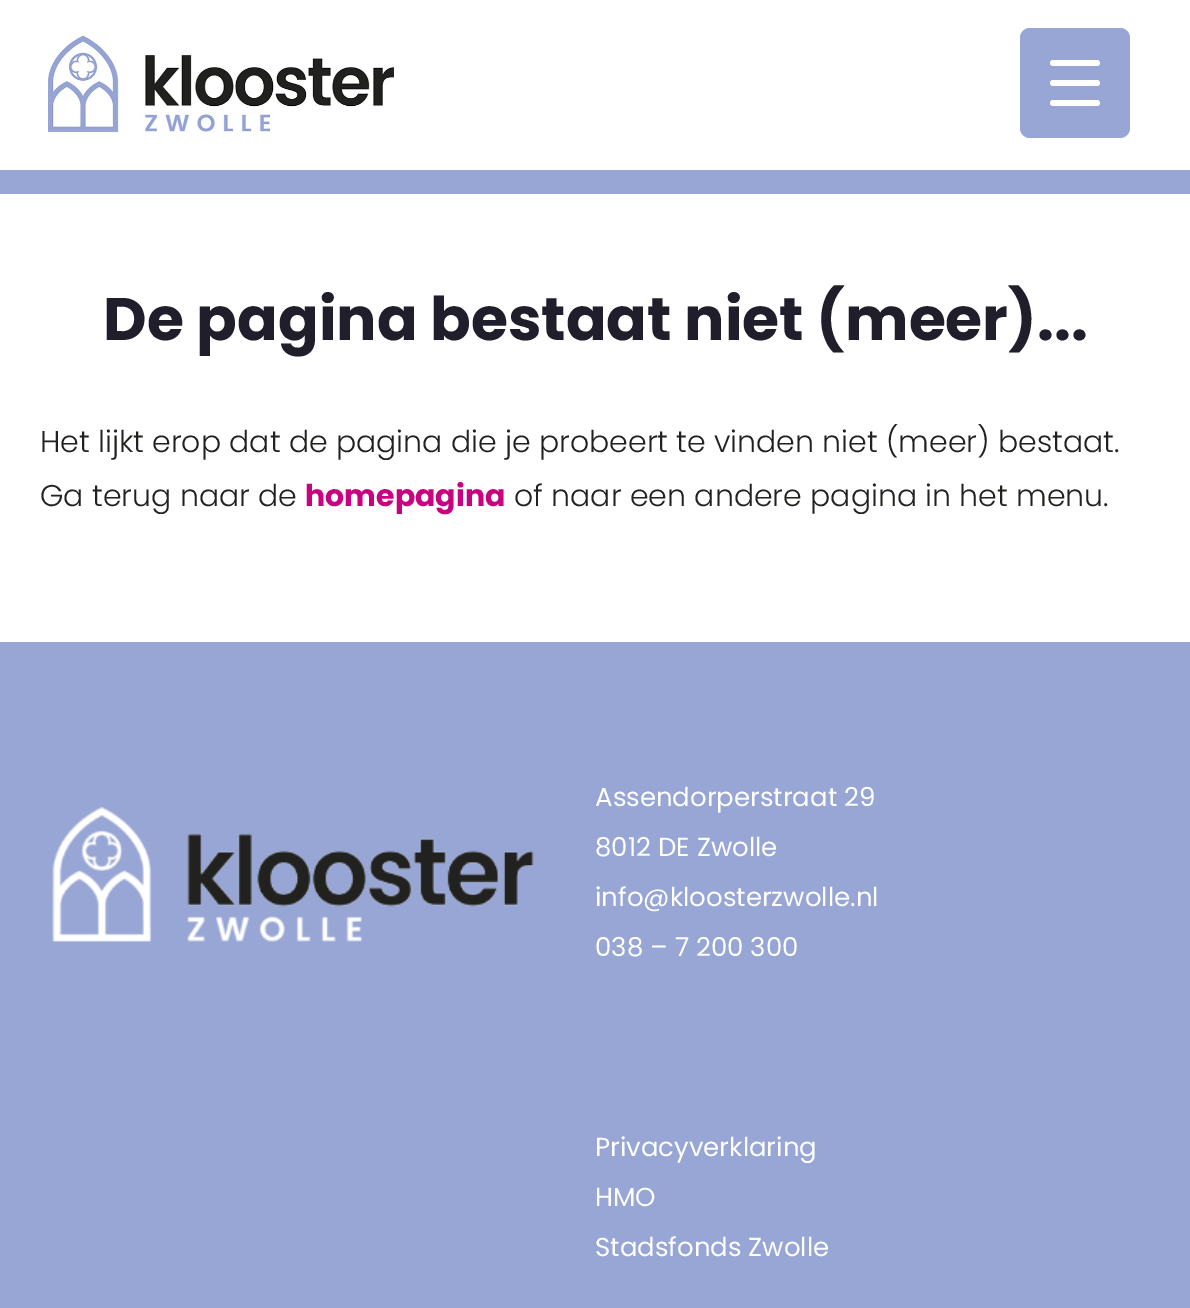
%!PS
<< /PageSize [1190 1308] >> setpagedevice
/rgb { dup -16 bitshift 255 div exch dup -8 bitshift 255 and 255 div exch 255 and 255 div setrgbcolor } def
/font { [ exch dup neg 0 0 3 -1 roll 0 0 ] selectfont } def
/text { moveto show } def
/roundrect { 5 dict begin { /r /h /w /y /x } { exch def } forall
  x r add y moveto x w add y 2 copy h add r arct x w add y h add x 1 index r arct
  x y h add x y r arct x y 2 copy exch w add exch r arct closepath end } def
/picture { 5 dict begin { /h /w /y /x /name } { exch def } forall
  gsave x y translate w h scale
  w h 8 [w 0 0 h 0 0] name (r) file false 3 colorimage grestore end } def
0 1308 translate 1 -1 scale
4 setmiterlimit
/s1 { /Poppins-Bold 60 font 16#201E2A rgb } def
/s2 { /Poppins-Light 30 font 16#21211F rgb } def
/s3 { /Poppins-Bold 30 font 16#C7017F rgb } def
/s4 { /Poppins-Regular 26 font 16#FFFFFF rgb } def
16#FFFFFF rgb
0 0 1190 1308 rectfill
(pic1.raw) 48 35 346 98 picture
16#97A6D5 rgb
1020 28 110 110 10 roundrect fill
16#FFFFFF rgb
1050 80 50 6 3 roundrect fill
1050 60 50 6 3 roundrect fill
1050 100 50 6 3 roundrect fill
16#97A6D5 rgb
0 170 1190 24 rectfill
s1
(De pagina bestaat niet \(meer\)...) 103 340 text
s2
(Het lijkt erop dat de pagina die je probeert te vinden niet \(meer\) bestaat.) 40 452 text
(Ga terug naar de) 40 506 text
s3
(homepagina) 305 506 text
s2
(of naar een andere pagina in het menu.) 514 506 text
16#97A6D5 rgb
0 642 1190 666 rectfill
(pic2.raw) 52 807 482 135 picture
s4
(Assendorperstraat 29) 595 806 text
(8012 DE Zwolle) 595 856 text
(info@kloosterzwolle.nl) 595 906 text
(038 – 7 200 300) 595 956 text
(Privacyverklaring) 595 1156 text
(HMO) 595 1206 text
(Stadsfonds Zwolle) 595 1256 text
showpage
